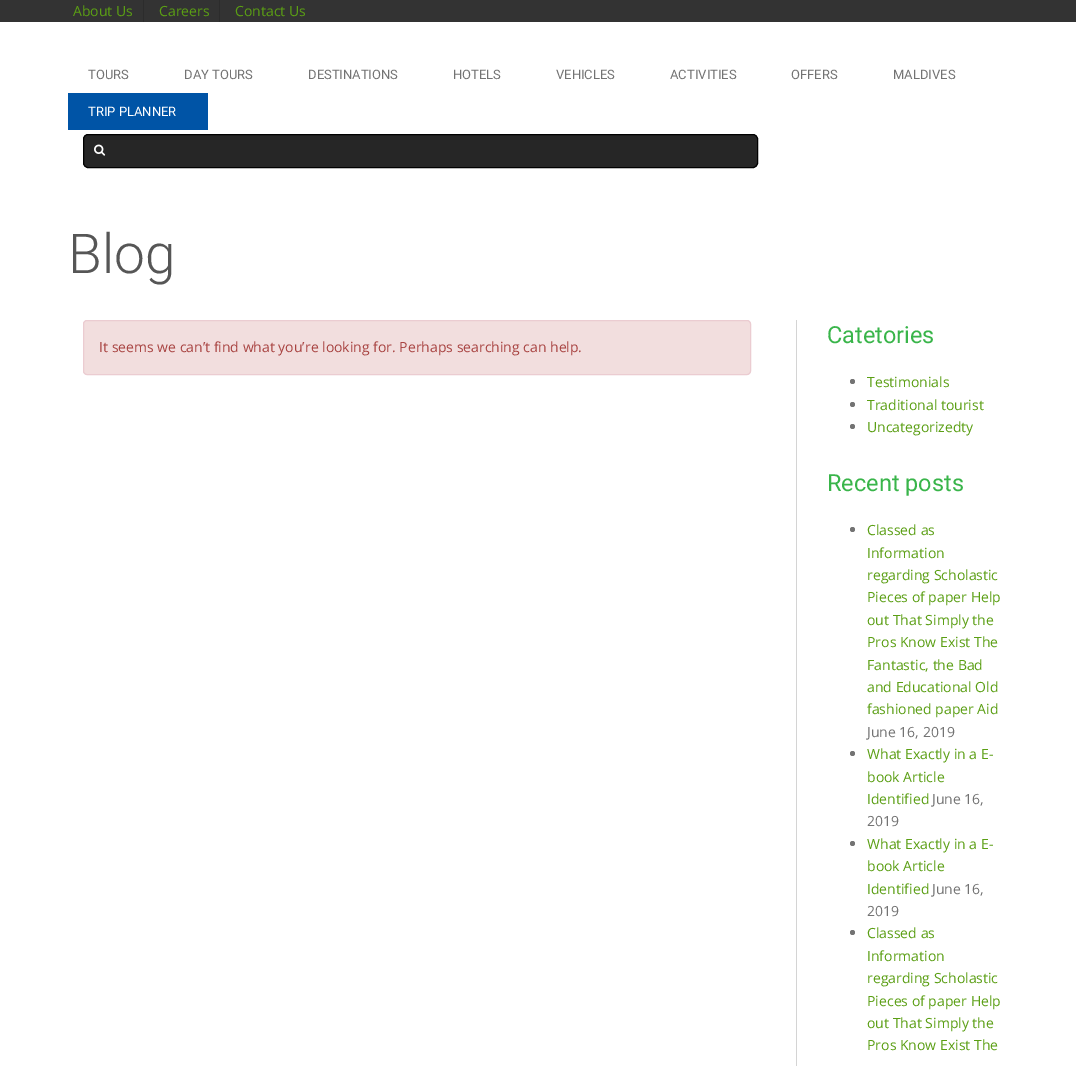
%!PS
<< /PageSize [1076 1066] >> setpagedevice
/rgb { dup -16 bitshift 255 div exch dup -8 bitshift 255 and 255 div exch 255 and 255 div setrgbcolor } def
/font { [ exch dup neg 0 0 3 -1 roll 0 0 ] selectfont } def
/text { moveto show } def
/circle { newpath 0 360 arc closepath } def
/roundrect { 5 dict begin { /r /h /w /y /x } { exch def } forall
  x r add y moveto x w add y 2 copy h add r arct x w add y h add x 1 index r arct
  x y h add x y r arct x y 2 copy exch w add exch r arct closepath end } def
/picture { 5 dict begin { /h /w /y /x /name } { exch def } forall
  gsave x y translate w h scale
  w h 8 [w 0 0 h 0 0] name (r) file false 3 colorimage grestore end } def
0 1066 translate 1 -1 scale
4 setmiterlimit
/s1 { /OpenSans-Regular 14 font 16#5B9F14 rgb } def
/s2 { /Roboto-Regular 13 font 16#737373 rgb } def
/s3 { /Roboto-Regular 13 font 16#FFFFFF rgb } def
/s4 { /Roboto-Light 55 font 16#565656 rgb } def
/s5 { /OpenSans-Regular 14 font 16#A94442 rgb } def
/s6 { /Roboto-Regular 23.5 font 16#39B54A rgb } def
/s7 { /OpenSans-Regular 14 font 16#737373 rgb } def
16#FFFFFF rgb
0 0 1076 1066 rectfill
16#333333 rgb
0 0 1076 22 rectfill
16#2C2C2C rgb
143 0 1 22 rectfill
s1
(About Us) 73 16 text
16#2C2C2C rgb
219 0 1 22 rectfill
s1
(Careers) 159 16 text
(Contact Us) 235 16 text
s2
(TOURS) 88 79 text
(DAY TOURS) 184 79 text
(DESTINATIONS) 308 79 text
(HOTELS) 453 79 text
(VEHICLES) 556 79 text
(ACTIVITIES) 670 79 text
(OFFERS) 791 79 text
(MALDIVES) 893 79 text
16#0054A6 rgb
68 93 140 37 rectfill
s3
(TRIP PLANNER) 88 116 text
16#262626 rgb
83.5 134.5 674 33 4.5 roundrect gsave fill grestore
16#000000 rgb
stroke
(pic1.raw) 94 144 12 12 picture
s4
(Blog) 68 273 text
16#F2DEDE rgb
83.5 320.5 667 54 3.5 roundrect gsave fill grestore
16#EBCCD1 rgb
stroke
s5
(It seems we can’t find what you’re looking for. Perhaps searching can help.) 99 352 text
16#D4D4D4 rgb
796 320 1 746 rectfill
s6
(Catetories) 827 343 text
16#737373 rgb
852.5 381.5 2.5 circle fill
s1
(Testimonials) 867 387 text
16#737373 rgb
852.5 404.5 2.5 circle fill
s1
(Traditional tourist) 867 410 text
16#737373 rgb
852.5 426.5 2.5 circle fill
s1
(Uncategorizedty) 867 432 text
s6
(Recent posts) 827 491 text
16#737373 rgb
852.5 529.5 2.5 circle fill
s1
(Classed as) 867 535 text
(Information) 867 558 text
(regarding Scholastic) 867 580 text
(Pieces of paper Help) 867 602 text
(out That Simply the) 867 625 text
(Pros Know Exist The) 867 647 text
(Fantastic, the Bad) 867 670 text
(and Educational Old) 867 692 text
(fashioned paper Aid) 867 714 text
s7
(June 16, 2019) 867 737 text
852.5 753.5 2.5 circle fill
s1
(What Exactly in a E-) 867 759 text
(book Article) 867 782 text
(Identified) 867 804 text
s7
(June 16,) 932 804 text
(2019) 867 826 text
852.5 843.5 2.5 circle fill
s1
(What Exactly in a E-) 867 849 text
(book Article) 867 871 text
(Identified) 867 894 text
s7
(June 16,) 932 894 text
(2019) 867 916 text
852.5 932.5 2.5 circle fill
s1
(Classed as) 867 938 text
(Information) 867 961 text
(regarding Scholastic) 867 983 text
(Pieces of paper Help) 867 1006 text
(out That Simply the) 867 1028 text
(Pros Know Exist The) 867 1050 text
showpage
